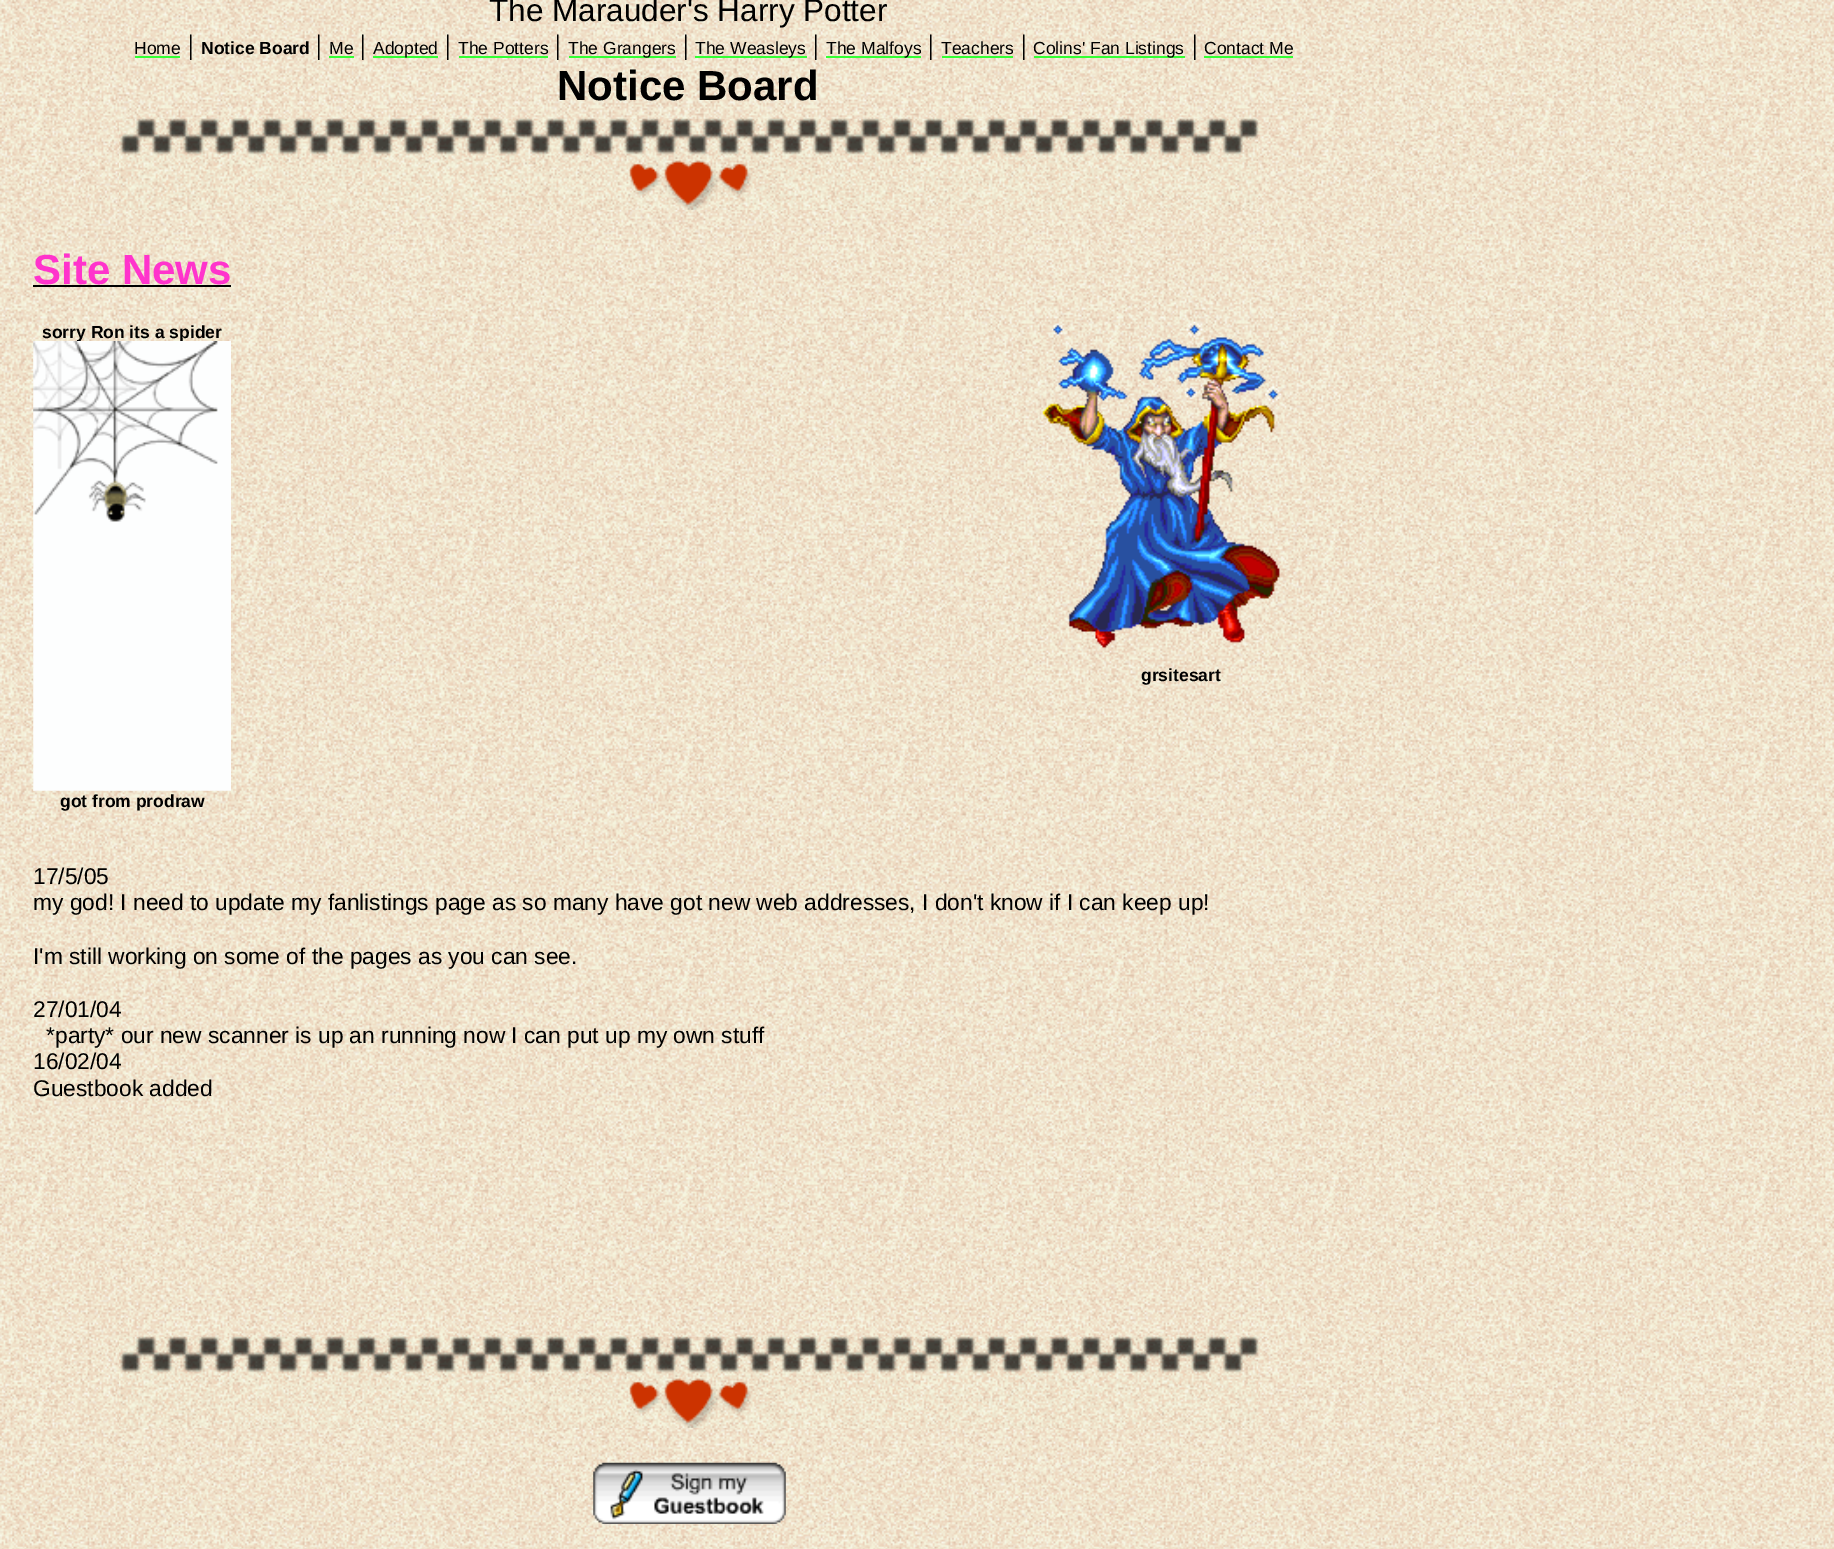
%!PS
<< /PageSize [1834 1549] >> setpagedevice
/rgb { dup -16 bitshift 255 div exch dup -8 bitshift 255 and 255 div exch 255 and 255 div setrgbcolor } def
/font { [ exch dup neg 0 0 3 -1 roll 0 0 ] selectfont } def
/text { moveto show } def
/picture { 5 dict begin { /h /w /y /x /name } { exch def } forall
  gsave x y translate w h scale
  w h 8 [w 0 0 h 0 0] name (r) file false 3 colorimage grestore end } def
0 1549 translate 1 -1 scale
4 setmiterlimit
/s1 { /LiberationSans-Regular 31.5 font 16#000000 rgb } def
/s2 { /LiberationSans-Regular 17.5 font 16#000000 rgb } def
/s3 { /LiberationSerif-Regular 28 font 16#000000 rgb } def
/s4 { /LiberationSans-Bold 17.5 font 16#000000 rgb } def
/s5 { /LiberationSans-Bold 42 font 16#000000 rgb } def
/s6 { /LiberationSans-Bold 42 font 16#FF33CC rgb } def
/s7 { /LiberationSans-Regular 22.75 font 16#000000 rgb } def
16#FFFFFF rgb
0 0 1834 1549 rectfill
(pic1.raw) 0 0 1834 1549 picture
s1
(The Marauder's Harry Potter) 489 21 text
s2
(Home) 134 54 text
16#33FF33 rgb
135 56 45 2 rectfill
s3
(|) 188 54 text
s4
(Notice Board) 201 54 text
s3
(|) 316 54 text
s2
(Me) 329 54 text
16#33FF33 rgb
329 56 25 2 rectfill
s3
(|) 360 54 text
16#33FF33 rgb
373 56 65 2 rectfill
s2
(Adopted) 373 54 text
s3
(|) 445 54 text
s2
(The Potters) 458 54 text
16#33FF33 rgb
459 56 89 2 rectfill
s3
(|) 555 54 text
16#33FF33 rgb
569 56 107 2 rectfill
s2
(The Grangers) 568 54 text
s3
(|) 683 54 text
16#33FF33 rgb
695 56 112 2 rectfill
s2
(The Weasleys) 695 54 text
s3
(|) 813 54 text
16#33FF33 rgb
826 56 95 2 rectfill
s2
(The Malfoys) 826 54 text
s3
(|) 928 54 text
s2
(Teachers) 941 54 text
16#33FF33 rgb
942 56 71 2 rectfill
s3
(|) 1021 54 text
16#33FF33 rgb
1034 56 151 2 rectfill
s2
(Colins' Fan Listings) 1033 54 text
s3
(|) 1192 54 text
s2
(Contact Me) 1204 54 text
16#33FF33 rgb
1204 56 89 2 rectfill
s5
(Notice Board) 557 100 text
(pic2.raw) 119 118 1140 92 picture
s6
(Site News) 33 284 text
16#000000 rgb
33 285 198 2 rectfill
s4
(sorry Ron its a spider) 42 338 text
(pic3.raw) 33 341 198 450 picture
(got from prodraw) 60 807 text
(pic4.raw) 1042 321 240 327 picture
(grsitesart) 1141 681 text
s7
(17/5/05) 33 884 text
(my god! I need to update my fanlistings page as so many have got new web addresses, I don't know if I can keep up!) 33 910 text
(I'm still working on some of the pages as you can see.) 33 964 text
(27/01/04) 33 1017 text
(*party* our new scanner is up an running now I can put up my own stuff) 46 1043 text
(16/02/04) 33 1069 text
(Guestbook added) 33 1096 text
(pic5.raw) 119 1336 1140 92 picture
(pic6.raw) 593 1462 193 62 picture
showpage
